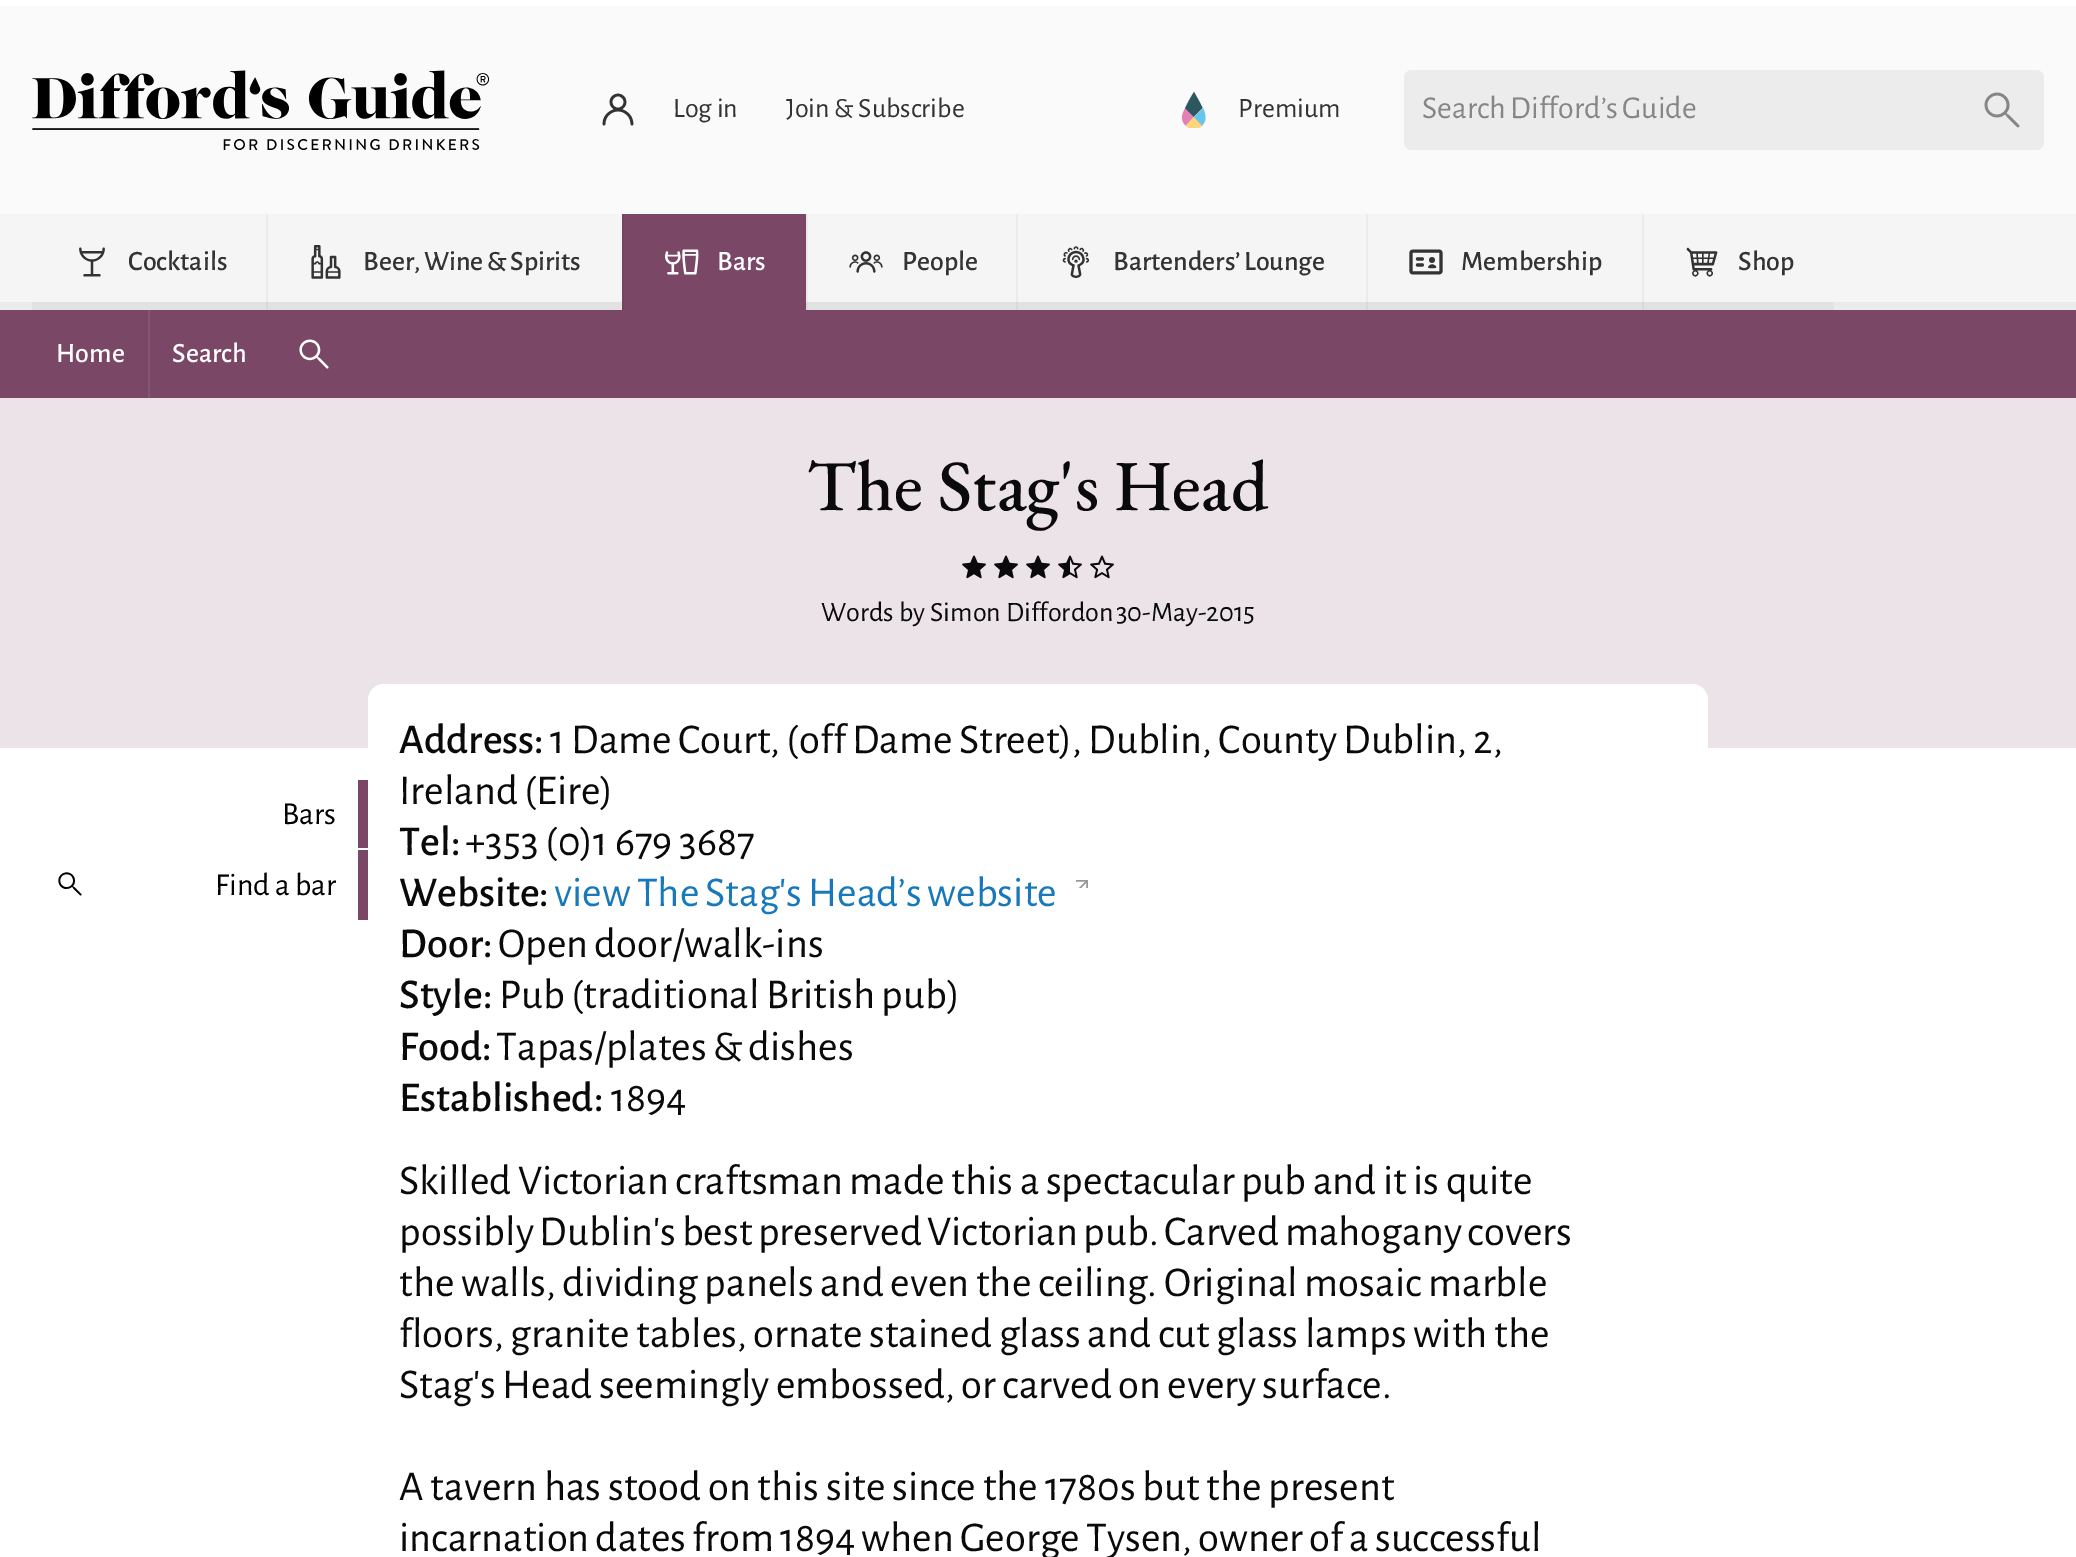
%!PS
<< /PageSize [2076 1557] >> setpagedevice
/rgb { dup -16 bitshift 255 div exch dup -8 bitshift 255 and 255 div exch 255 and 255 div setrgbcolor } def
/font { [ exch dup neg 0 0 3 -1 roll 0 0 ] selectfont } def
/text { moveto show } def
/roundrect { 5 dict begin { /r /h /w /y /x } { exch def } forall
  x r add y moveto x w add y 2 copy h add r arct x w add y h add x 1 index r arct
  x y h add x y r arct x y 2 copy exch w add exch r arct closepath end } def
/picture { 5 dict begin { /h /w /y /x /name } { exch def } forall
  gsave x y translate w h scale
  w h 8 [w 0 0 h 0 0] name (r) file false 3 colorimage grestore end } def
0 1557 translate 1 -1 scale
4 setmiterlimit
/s1 { /AlegreyaSans-Regular 28 font 16#333333 rgb } def
/s2 { /AlegreyaSans-Medium 28 font 16#333333 rgb } def
/s3 { /AlegreyaSans-Medium 28 font 16#FFFFFF rgb } def
/s4 { /EBGaramond-Medium 72 font 16#0A0A0A rgb } def
/s5 { /AlegreyaSans-Regular 32 font 16#000000 rgb } def
/s6 { /AlegreyaSans-Medium 42.55 font 16#0A0A0A rgb } def
/s7 { /AlegreyaSans-Regular 42.55 font 16#0A0A0A rgb } def
16#FFFFFF rgb
0 0 2076 1557 rectfill
16#FAFAFA rgb
0 6 2076 208 rectfill
(pic1.raw) 32 70 457 80 picture
(pic2.raw) 602 93 32 33 picture
s1
(Log in) 673 117 text
(Join & Subscribe) 786 117 text
16#2D575F rgb
1202.5 108 moveto 1193.5 117 lineto 1185 108.5 lineto 1188.5 100.5 1194 92 1194 92 curveto 1194 92 1199 100.5 1202.5 108 curveto closepath fill
gsave
1182 92 24 36 rectclip
16#FFD57B rgb
1185.5 125.5 moveto 1194 117 lineto 1202.5 125.5 lineto 1197.5 130 1190 130 1185.5 125.5 curveto closepath fill
grestore
16#69C4EA rgb
1194 117 moveto 1202 125.5 lineto 1207.5 120 1205.5 114 1203 108 curveto closepath fill
16#E381B4 rgb
1185.5 125.5 moveto 1193.5 117 lineto 1185 108.5 lineto 1182 114 1180 120 1185.5 125.5 curveto closepath fill
s1
(Premium) 1238 117 text
16#ECECEC rgb
1404 70 640 80 8 roundrect fill
/AlegreyaSans-Regular 32 font
16#868686 rgb
1422 118 moveto -1 0 32 (Search Difford’s Guide) widthshow
(pic3.raw) 1984 92 36 36 picture
16#F5F5F5 rgb
0 214 2076 88 rectfill
16#EBEBEB rgb
1642 214 2 96 rectfill
1366 214 2 96 rectfill
1016 214 2 96 rectfill
806 214 2 96 rectfill
266 214 2 96 rectfill
(pic4.raw) 79 247 26 30 picture
s2
(Cocktails) 128 270 text
16#EBEBEB rgb
0 302 2076 8 rectfill
16#E2E2E2 rgb
32 302 590 8 rectfill
(pic5.raw) 311 245 30 34 picture
16#333333 rgb
363 270 moveto -1 0 32 (Beer, Wine & Spirits) widthshow
16#D9D9D9 rgb
266 302 2 8 rectfill
16#7B4766 rgb
624 214 182 96 rectfill
16#764462 rgb
622 214 2 96 rectfill
(pic6.raw) 665 249 34 26 picture
s3
(Bars) 717 270 text
(pic7.raw) 849 251 34 22 picture
s2
(People) 902 270 text
16#E2E2E2 rgb
806 302 1028 8 rectfill
16#D9D9D9 rgb
806 302 2 8 rectfill
(pic8.raw) 1062 246 27 32 picture
16#333333 rgb
1113 270 moveto -1 0 32 (Bartenders’ Lounge) widthshow
16#D9D9D9 rgb
1016 302 2 8 rectfill
(pic9.raw) 1409 249 34 26 picture
s2
(Membership) 1461 270 text
16#D9D9D9 rgb
1366 302 2 8 rectfill
(pic10.raw) 1686 247 32 30 picture
s2
(Shop) 1738 270 text
16#D9D9D9 rgb
1642 302 2 8 rectfill
16#7B4766 rgb
0 310 2076 88 rectfill
s3
(Home) 56 362 text
16#845471 rgb
148 310 2 88 rectfill
s3
(Search) 172 362 text
(pic11.raw) 299 339 30 30 picture
16#EBE3E8 rgb
0 398 2076 350 rectfill
s4
(The Stag's Head) 807 510 text
(pic12.raw) 962 555 24 24 picture
(pic13.raw) 994 555 24 24 picture
(pic12.raw) 1026 555 24 24 picture
(pic14.raw) 1058 555 24 24 picture
(pic15.raw) 1090 555 24 24 picture
/AlegreyaSans-Regular 28 font
821 621 moveto 0.5 0 32 (Words by Simon Difford) widthshow
1085 621 moveto -2 0 32 (on 30-May-2015) widthshow
16#7B4766 rgb
358 780 10 68 rectfill
s5
(Bars) 282 824 text
16#7B4766 rgb
358 850 10 70 rectfill
(pic16.raw) 58 872 24 24 picture
s5
(Find a bar) 215 895 text
16#FFFFFF rgb
368 684 1340 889 16 roundrect fill
s6
(Address:) 399 753 text
/AlegreyaSans-Regular 42.55 font
550 753 moveto -0.6 0 32 (1 Dame Court, \(off Dame Street\), Dublin, County Dublin, 2,) widthshow
399 804 moveto -1 0 32 (Ireland \(Eire\)) widthshow
s6
(Tel:) 399 855 text
s7
(+353 \(0\)1 679 3687) 465 855 text
s6
(Website:) 399 906 text
/AlegreyaSans-Regular 42.55 font
16#1779BA rgb
554 906 moveto -1 0 32 (view The Stag's Head’s website) widthshow
(pic17.raw) 1076 880 12 8 picture
s6
(Door:) 399 957 text
/AlegreyaSans-Regular 42.55 font
498 957 moveto -1 0 32 (Open door/walk-ins) widthshow
s6
(Style:) 399 1008 text
/AlegreyaSans-Regular 42.55 font
499 1008 moveto -0.5 0 32 (Pub \(traditional British pub\)) widthshow
s6
(Food:) 399 1060 text
/AlegreyaSans-Regular 42.55 font
496 1060 moveto -1 0 32 (Tapas/plates & dishes) widthshow
s6
(Established:) 399 1111 text
s7
(1894) 611 1111 text
399 1194 moveto -0.5 0 32 (Skilled Victorian craftsman made this a spectacular pub and it is quite) widthshow
399 1245 moveto -1.5 0 32 (possibly Dublin's best preserved Victorian pub. Carved mahogany covers) widthshow
399 1296 moveto -0.5 0 32 (the walls, dividing panels and even the ceiling. Original mosaic marble) widthshow
399 1347 moveto -0.5 0 32 (floors, granite tables, ornate stained glass and cut glass lamps with the) widthshow
399 1398 moveto -0.75 0 32 (Stag's Head seemingly embossed, or carved on every surface.) widthshow
399 1500 moveto -0.25 0 32 (A tavern has stood on this site since the 1780s but the present) widthshow
399 1551 moveto -0.9 0 32 (incarnation dates from 1894 when George Tysen, owner of a successful) widthshow
showpage
